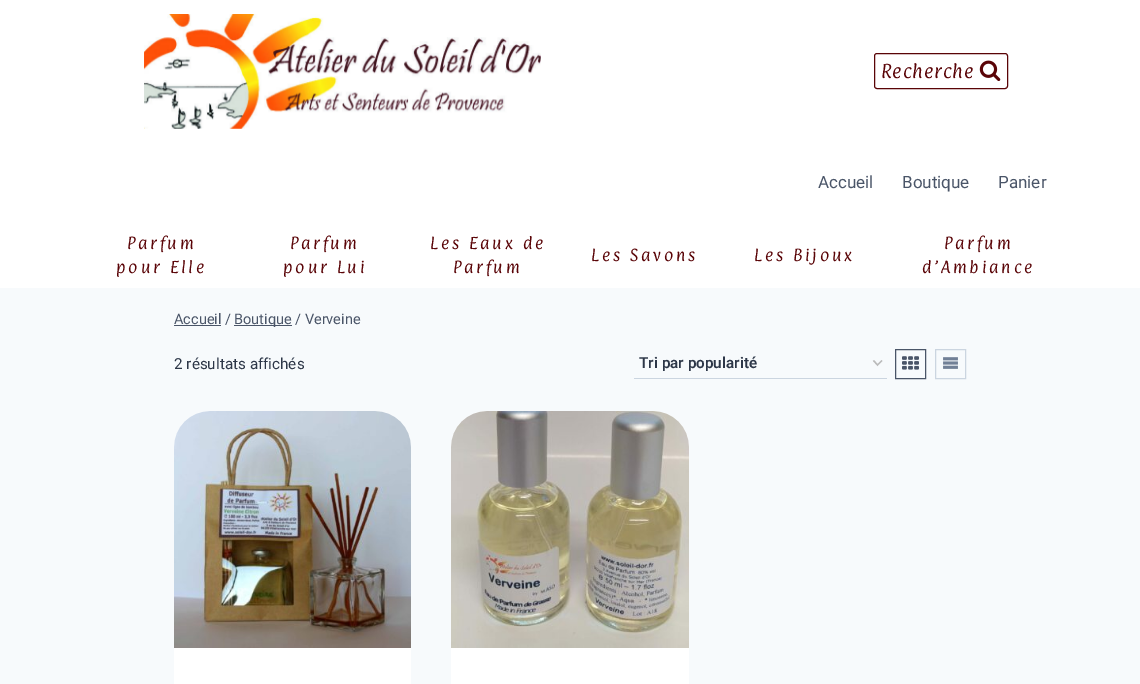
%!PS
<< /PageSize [1140 684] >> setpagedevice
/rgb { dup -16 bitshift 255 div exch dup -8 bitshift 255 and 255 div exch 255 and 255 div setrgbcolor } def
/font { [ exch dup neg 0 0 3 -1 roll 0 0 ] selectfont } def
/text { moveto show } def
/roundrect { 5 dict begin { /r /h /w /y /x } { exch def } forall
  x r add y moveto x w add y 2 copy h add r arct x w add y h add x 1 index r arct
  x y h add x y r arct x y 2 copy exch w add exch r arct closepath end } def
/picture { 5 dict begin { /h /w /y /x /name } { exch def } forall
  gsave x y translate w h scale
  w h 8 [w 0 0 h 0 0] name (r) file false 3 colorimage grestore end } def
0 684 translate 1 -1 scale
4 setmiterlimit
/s1 { /Roboto-Regular 17 font 16#4A5568 rgb } def
/s2 { /Roboto-Regular 14.5 font 16#4A5568 rgb } def
/s3 { /Roboto-Regular 15.25 font 16#2D3748 rgb } def
/s4 { /Roboto-SemiBold 15.25 font 16#2D3748 rgb } def
16#F7FAFC rgb
0 0 1140 684 rectfill
16#FFFFFF rgb
0 0 1140 288 rectfill
(pic1.raw) 144 14 397 115 picture
16#5A0407 rgb
874.5 53.5 133 35 2.5 roundrect stroke
/Paprika-Regular 16 font
881 78 moveto 1 0 (Recherche) ashow
(pic2.raw) 979 60 22 21 picture
s1
(Accueil) 818 188 text
(Boutique) 902 188 text
(Panier) 998 188 text
/Paprika-Regular 14 font
16#5A0407 rgb
127 249 moveto 2.75 0 (Parfum) ashow
116 273 moveto 2.75 0 (pour Elle) ashow
290 249 moveto 2.75 0 (Parfum) ashow
283 273 moveto 2.75 0 (pour Lui) ashow
430 249 moveto 2.75 0 (Les Eaux de) ashow
453 273 moveto 2.75 0 (Parfum) ashow
591 261 moveto 2.75 0 (Les Savons) ashow
754 261 moveto 2.75 0 (Les Bijoux) ashow
944 249 moveto 2.75 0 (Parfum) ashow
922 273 moveto 2.75 0 (d’Ambiance) ashow
s2
(Accueil /) 174 324 text
174 325 47 1 rectfill
234 325 58 1 rectfill
(Boutique / Verveine) 234 324 text
s3
(2 résultats affichés) 174 369 text
16#BBBBBB rgb
1.4 setlinewidth
873.5 360.5 moveto 877.5 365 lineto 882 360.5 lineto stroke
16#CBD5E0 rgb
634 378 253 1 rectfill
s4
(Tri par popularité) 639 368 text
16#4A5568 rgb
1 setlinewidth
895.5 349.5 30 29 rectstroke
(pic3.raw) 902 356 17 14 picture
16#CBD5E0 rgb
935.5 349.5 30 29 rectstroke
(pic4.raw) 943 357 15 12 picture
16#FFFFFF rgb
174 411 237 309 36 roundrect fill
(pic5.raw) 174 411 237 237 picture
451 411 238 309 36 roundrect fill
(pic6.raw) 451 411 238 237 picture
showpage
